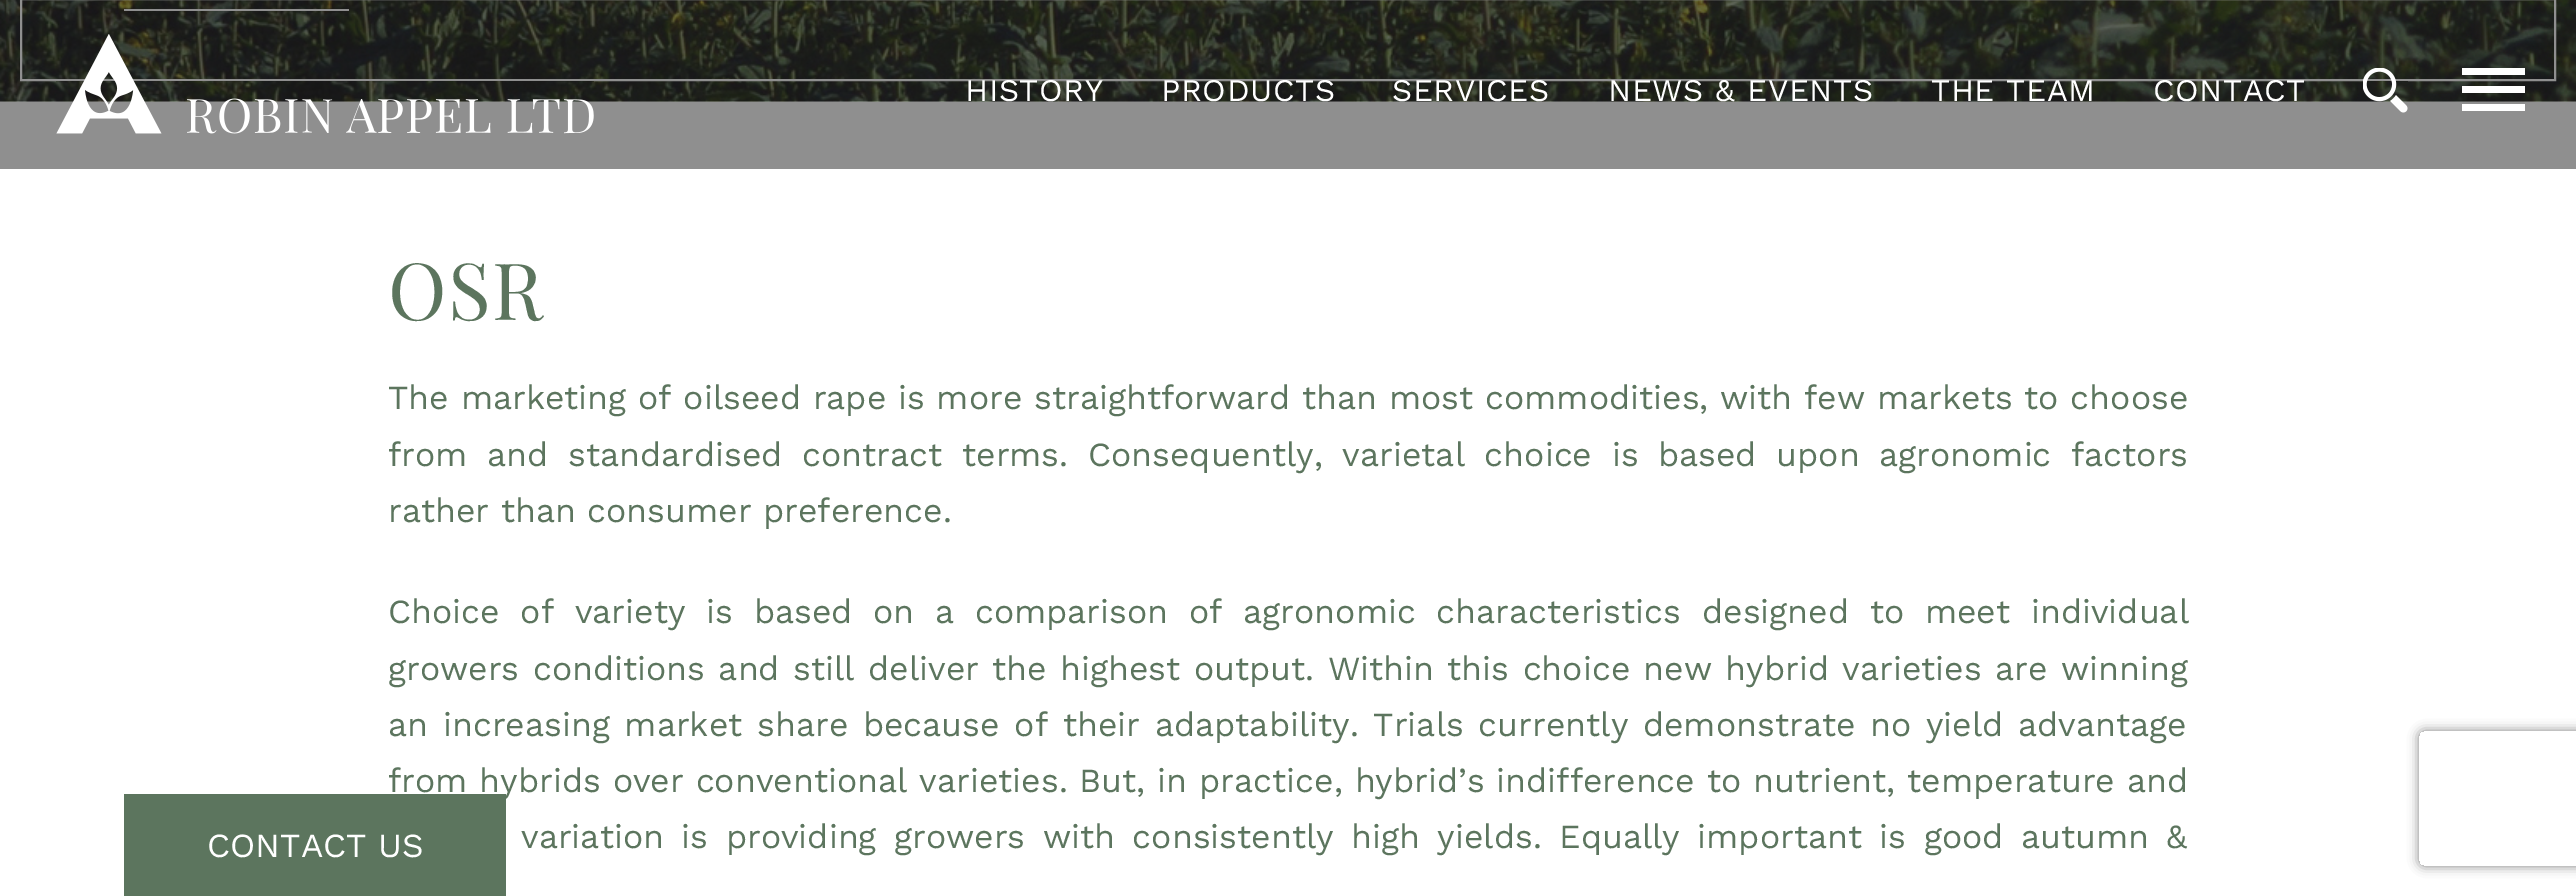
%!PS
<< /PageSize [2576 896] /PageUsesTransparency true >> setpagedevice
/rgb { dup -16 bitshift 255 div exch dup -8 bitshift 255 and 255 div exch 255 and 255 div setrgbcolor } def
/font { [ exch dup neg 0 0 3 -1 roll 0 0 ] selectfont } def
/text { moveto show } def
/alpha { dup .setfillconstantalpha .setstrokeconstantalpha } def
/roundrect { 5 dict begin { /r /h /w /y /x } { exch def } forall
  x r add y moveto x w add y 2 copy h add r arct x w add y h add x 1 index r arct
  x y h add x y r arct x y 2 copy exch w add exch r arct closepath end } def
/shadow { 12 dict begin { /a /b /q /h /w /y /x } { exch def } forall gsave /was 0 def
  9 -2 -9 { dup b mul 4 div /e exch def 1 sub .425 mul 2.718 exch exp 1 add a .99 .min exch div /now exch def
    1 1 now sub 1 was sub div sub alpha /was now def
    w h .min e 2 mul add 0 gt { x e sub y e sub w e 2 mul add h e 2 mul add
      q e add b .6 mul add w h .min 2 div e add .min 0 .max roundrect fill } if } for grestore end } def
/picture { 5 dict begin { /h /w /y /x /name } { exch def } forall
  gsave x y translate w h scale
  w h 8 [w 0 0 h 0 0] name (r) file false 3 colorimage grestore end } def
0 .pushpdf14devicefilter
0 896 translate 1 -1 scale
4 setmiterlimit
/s1 { /WorkSans-Regular 33.77 font 16#FFFFFF rgb } def
/s2 { /WorkSans-Regular 33.77 font 16#5C755E rgb } def
16#FFFFFF rgb
0 0 2576 896 rectfill
16#8F8F8F rgb
0 101 2576 68 rectfill
(pic1.raw) 0 0 2576 102 picture
2 setlinewidth
21 -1 2534 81 rectstroke
124 9 225 2 rectfill
(pic2.raw) 56 34 538 100 picture
/WorkSans-Regular 31.5 font
16#FFFFFF rgb
965 101 moveto 0.6 0 (HISTORY) ashow
1161 101 moveto 0.6 0 (PRODUCTS) ashow
1392 101 moveto 0.6 0 (SERVICES) ashow
1608 101 moveto 0.6 0 (NEWS & EVENTS) ashow
1931 101 moveto 0.6 0 (THE TEAM) ashow
2153 101 moveto 0.6 0 (CONTACT) ashow
(pic3.raw) 2363 68 45 45 picture
2462 86 63 7 rectfill
2462 68 63 7 rectfill
2462 104 63 7 rectfill
16#5C755E rgb
124 794 382 102 rectfill
s1
(CONTACT US) 207 857 text
/PlayfairDisplay-Regular 79 font
16#5C755E rgb
388 320 moveto 1.5 0 (OSR) ashow
/WorkSans-Regular 33.77 font
388 409 moveto 0.25 0 32 (The marketing of oilseed rape is more straightforward than most commodities, with few markets to choose) widthshow
388 466 moveto 8.1 0 32 (from and standardised contract terms. Consequently, varietal choice is based upon agronomic factors) widthshow
(rather than consumer preference.) 388 522 text
388 623 moveto 9.25 0 32 (Choice of variety is based on a comparison of agronomic characteristics designed to meet individual) widthshow
388 680 moveto 1.9 0 32 (growers conditions and still deliver the highest output. Within this choice new hybrid varieties are winning) widthshow
388 736 moveto 3.25 0 32 (an increasing market share because of their adaptability. Trials currently demonstrate no yield advantage) widthshow
388 792 moveto 0.4 0 32 (from hybrids over conventional varieties. But, in practice, hybrid’s indifference to nutrient, temperature and) widthshow
521 848 moveto 6 0 32 (variation is providing growers with consistently high yields. Equally important is good autumn &) widthshow
gsave
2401 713 moveto 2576 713 lineto 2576 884 lineto 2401 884 lineto closepath 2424 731 moveto 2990 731 lineto 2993 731 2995 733 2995 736 curveto 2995 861 lineto 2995 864 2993 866 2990 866 curveto 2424 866 lineto 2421 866 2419 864 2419 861 curveto 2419 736 lineto 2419 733 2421 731 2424 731 curveto closepath eoclip newpath
16#808080 rgb
2419 731 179 135 5 5.5 1 shadow
grestore
.poppdf14devicefilter showpage
